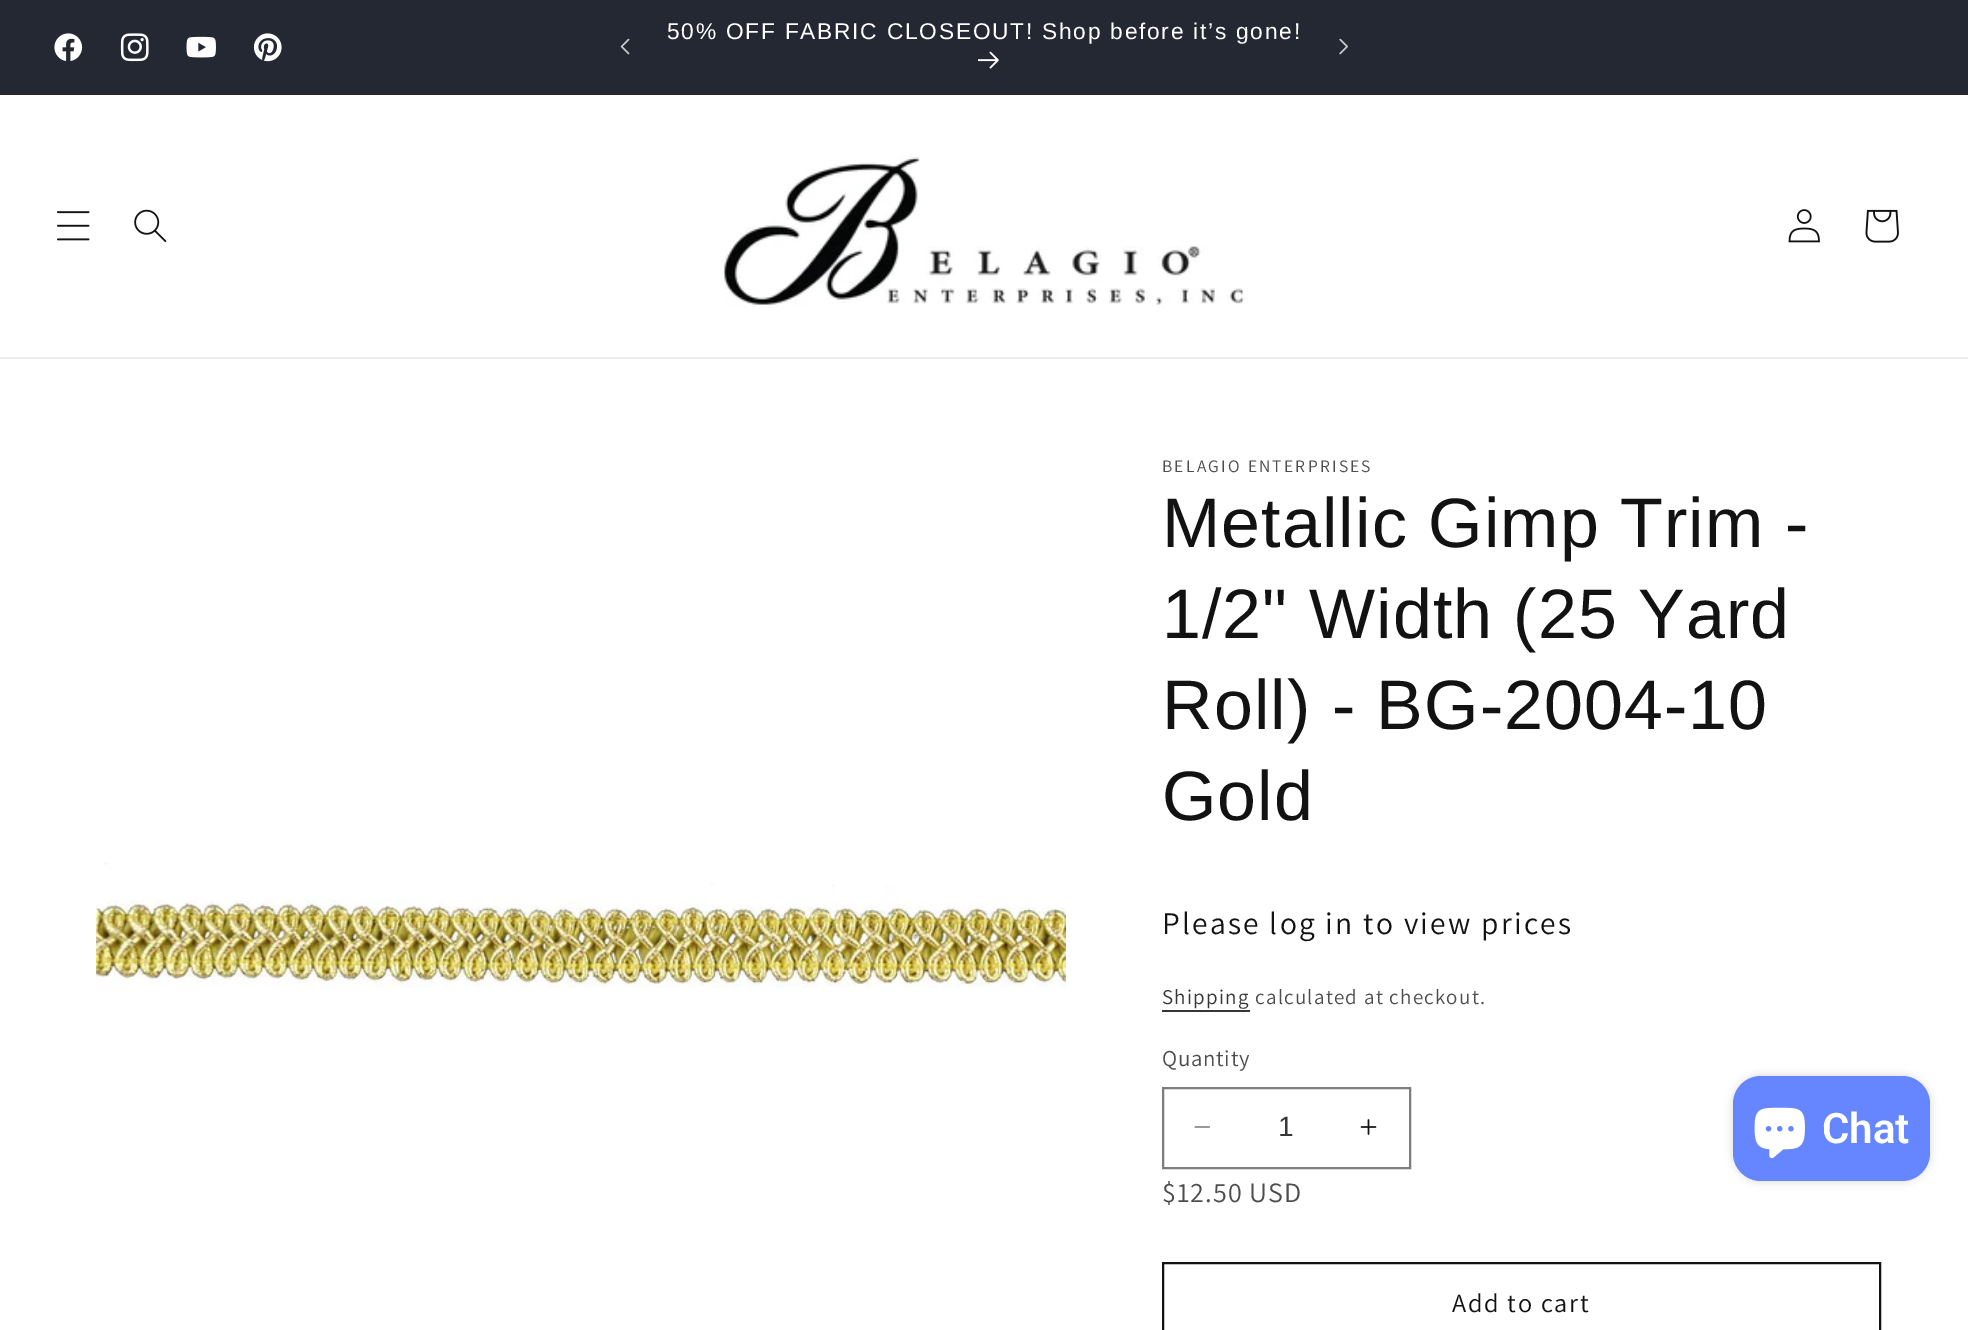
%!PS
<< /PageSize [1968 1330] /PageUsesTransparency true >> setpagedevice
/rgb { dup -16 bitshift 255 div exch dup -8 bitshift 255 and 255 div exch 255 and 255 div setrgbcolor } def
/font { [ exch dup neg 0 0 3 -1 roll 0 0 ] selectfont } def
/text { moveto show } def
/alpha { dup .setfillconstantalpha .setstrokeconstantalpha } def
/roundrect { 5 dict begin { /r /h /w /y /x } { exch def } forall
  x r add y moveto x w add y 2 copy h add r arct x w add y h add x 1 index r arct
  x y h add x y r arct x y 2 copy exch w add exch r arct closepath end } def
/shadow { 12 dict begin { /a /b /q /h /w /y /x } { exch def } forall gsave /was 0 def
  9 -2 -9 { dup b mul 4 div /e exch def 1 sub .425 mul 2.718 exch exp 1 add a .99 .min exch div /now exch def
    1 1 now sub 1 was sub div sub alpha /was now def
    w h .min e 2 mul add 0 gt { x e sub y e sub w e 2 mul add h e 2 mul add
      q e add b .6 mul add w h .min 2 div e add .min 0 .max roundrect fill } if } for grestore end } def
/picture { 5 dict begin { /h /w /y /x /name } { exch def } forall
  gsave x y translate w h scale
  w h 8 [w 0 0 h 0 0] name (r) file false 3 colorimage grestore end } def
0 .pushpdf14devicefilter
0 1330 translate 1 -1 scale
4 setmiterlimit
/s1 { /LiberationSans-Regular 28 font 16#363636 rgb } def
/s2 { /Roboto-SemiBold 42 font 16#FFFFFF rgb } def
16#FFFFFF rgb
0 0 1968 1330 rectfill
16#242833 rgb
0 0 1968 95 rectfill
(pic1.raw) 54 33 29 28 picture
(pic2.raw) 120 33 29 29 picture
(pic3.raw) 186 36 30 22 picture
(pic4.raw) 253 33 29 29 picture
/LiberationSans-Regular 22.75 font
16#FFFFFF rgb
667 39 moveto 1.75 0 (50% OFF FABRIC CLOSEOUT! Shop before it’s gone!) ashow
(pic5.raw) 978 51 21 18 picture
(pic6.raw) 620 38 10 17 picture
(pic7.raw) 1339 38 9 17 picture
16#ECECEC rgb
0 357 1968 2 rectfill
(pic8.raw) 57 211 33 30 picture
(pic9.raw) 134 209 33 34 picture
(pic10.raw) 723 156 525 152 picture
(pic11.raw) 1788 209 32 34 picture
(pic12.raw) 1865 209 34 34 picture
(pic13.raw) 96 862 970 128 picture
/Assistant-Regular 17.5 font
16#4D4D4D rgb
1162 472 moveto 2.25 0 (BELAGIO ENTERPRISES) ashow
/LiberationSans-Regular 70 font
16#121212 rgb
1162 547 moveto 1.05 0 (Metallic Gimp Trim -) ashow
1162 638 moveto 1.05 0 (1/2" Width \(25 Yard) ashow
1162 729 moveto 1.05 0 (Roll\) - BG-2004-10) ashow
1162 820 moveto 1.05 0 (Gold) ashow
/Assistant-Regular 31.5 font
1162 934 moveto 2.25 0 (Please log in to view prices) ashow
/Assistant-Regular 21 font
16#363636 rgb
1162 1004 moveto 1.25 0 (Shipping) ashow
1162 1010 88 2 rectfill
16#4D4D4D rgb
1255 1004 moveto 1.25 0 (calculated at checkout.) ashow
/Assistant-Regular 22.75 font
1162 1066 moveto 0.75 0 (Quantity) ashow
(pic14.raw) 1194 1126 16 2 picture
(pic15.raw) 1360 1119 17 16 picture
16#7D7D7D rgb
2 setlinewidth
1163 1088 247 80 rectstroke
s1
(1) 1278 1136 text
/Assistant-Regular 28 font
16#4D4D4D rgb
1162 1202 moveto 1.05 0 ($12.50 USD) ashow
16#121212 rgb
1163 1263 717 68 rectstroke
/Assistant-Regular 26.25 font
1452 1312 moveto 1.75 0 (Add to cart) ashow
16#000000 rgb
1733 1076 197 105 28 4.5 0.15 shadow
16#6586FF rgb
1733 1076 197 105 28 roundrect fill
(pic16.raw) 1754 1107 51 52 picture
s2
(Chat) 1822 1143 text
.poppdf14devicefilter showpage
